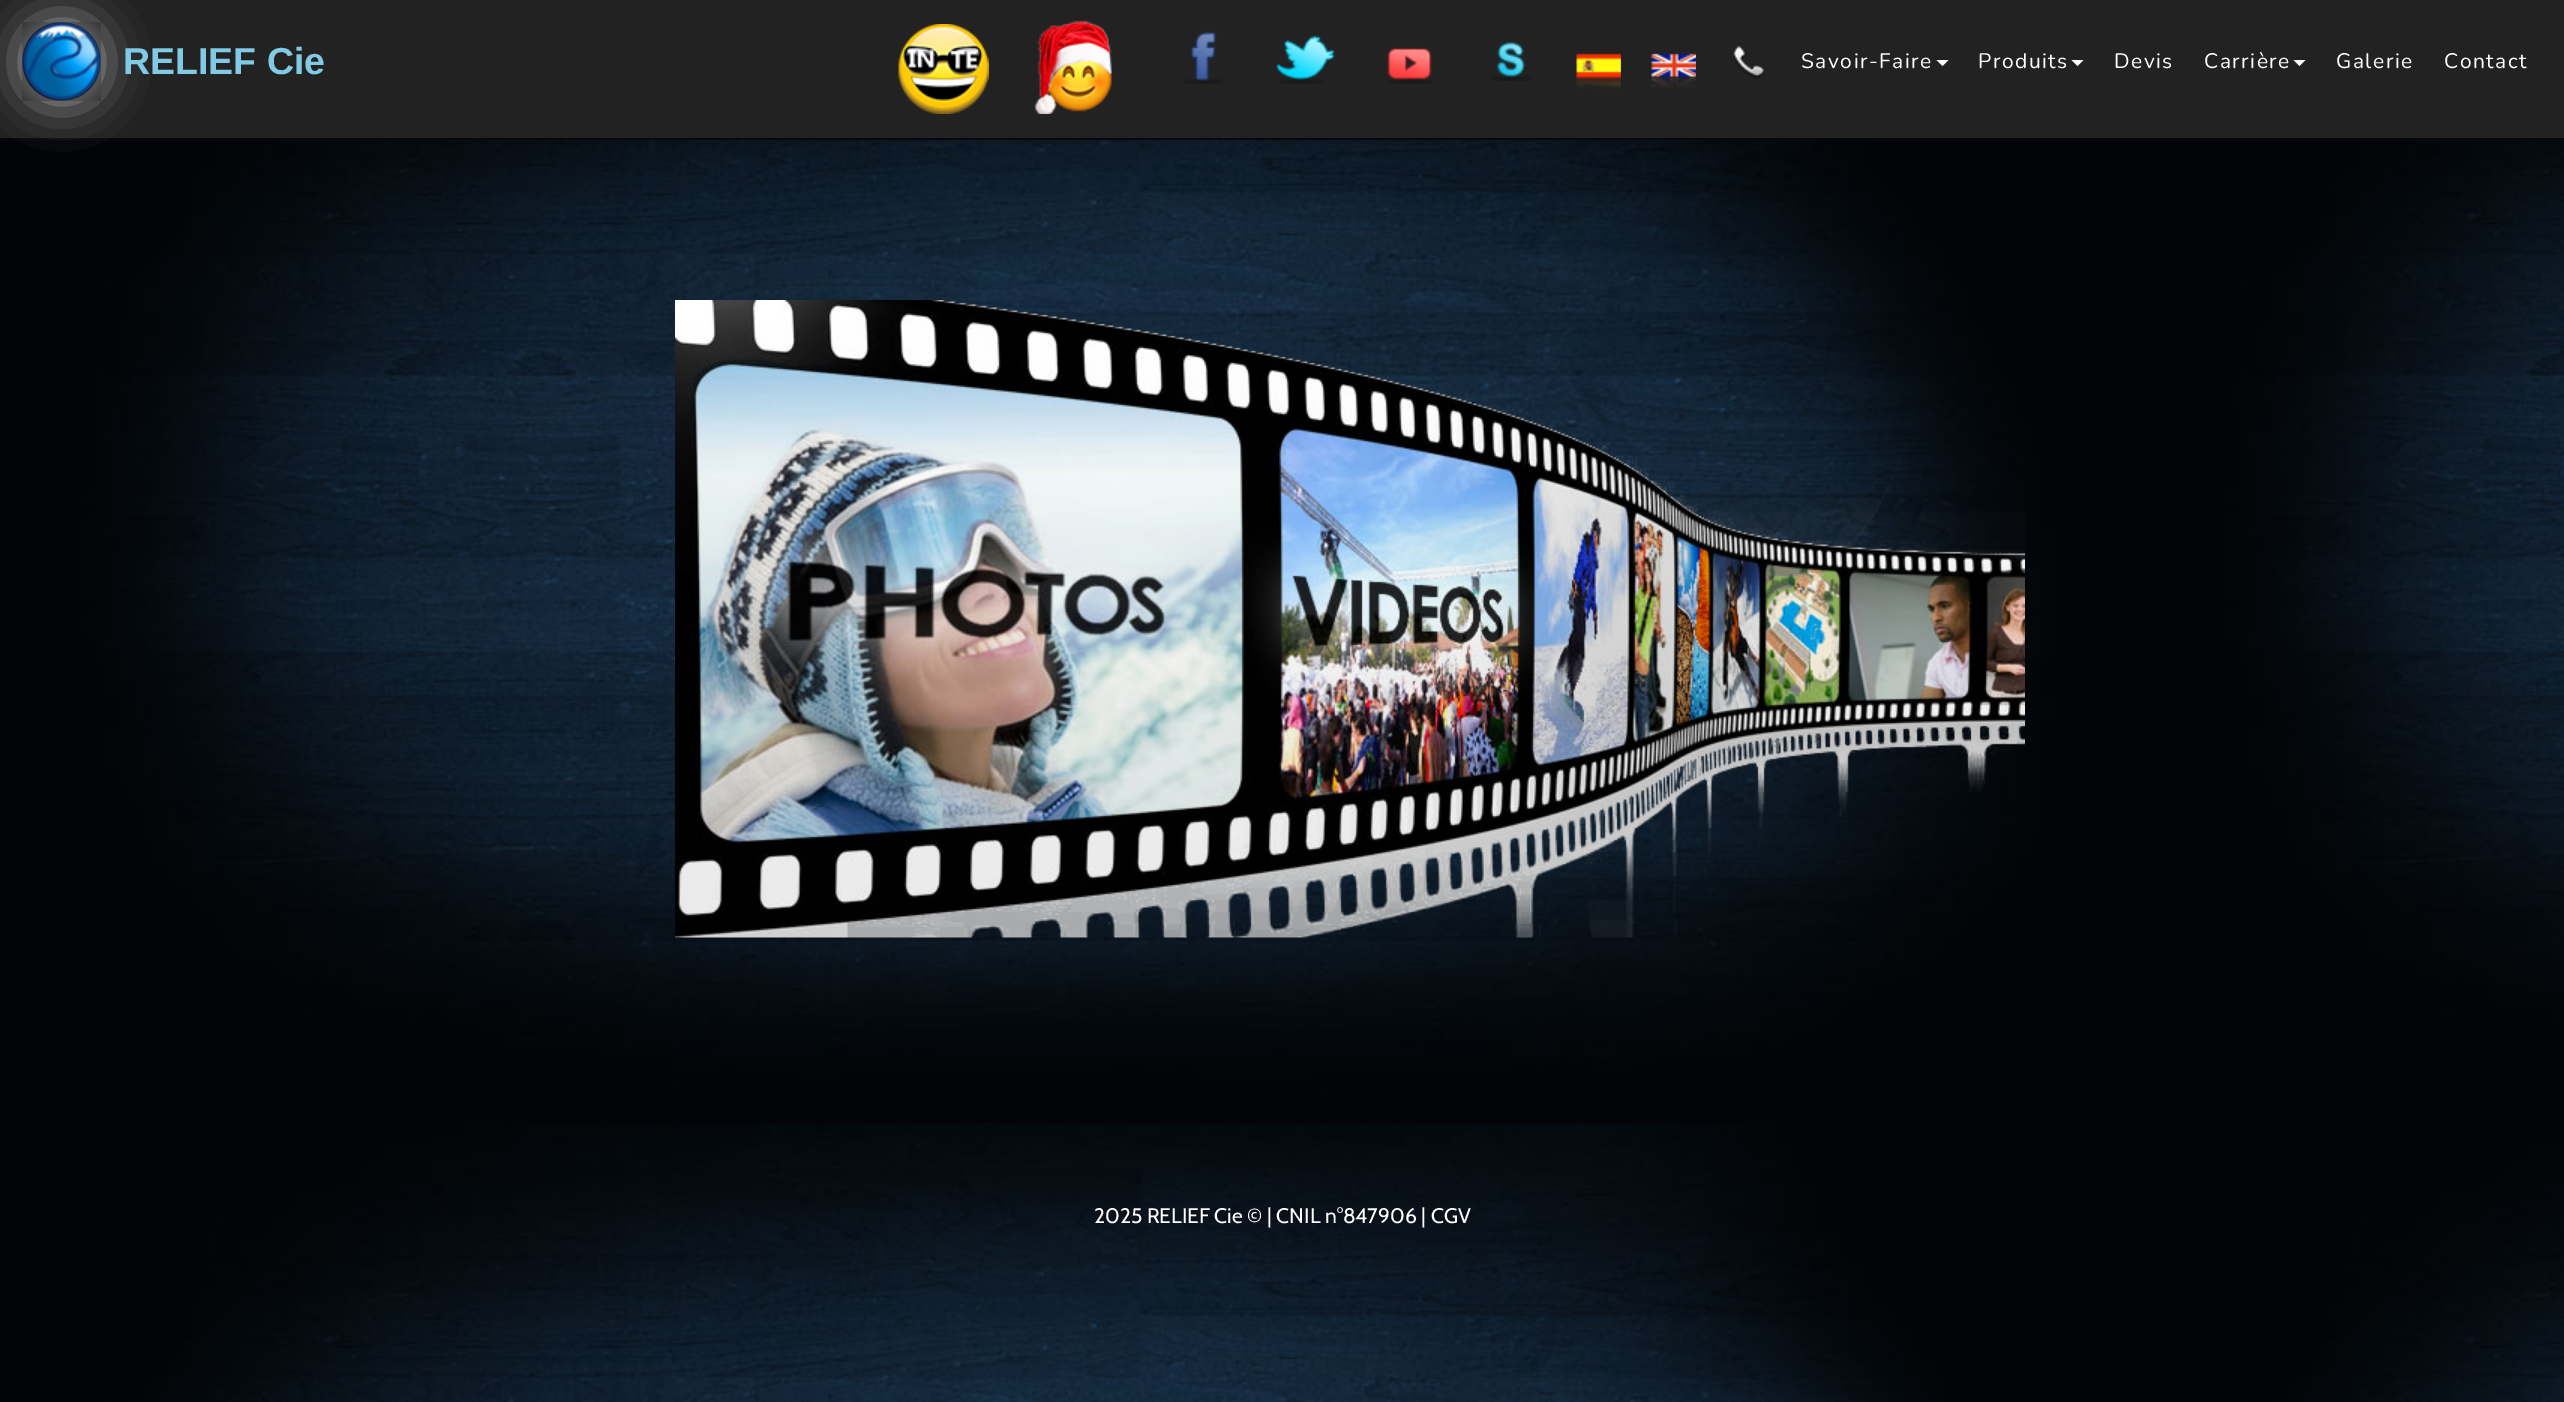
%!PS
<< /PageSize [2564 1402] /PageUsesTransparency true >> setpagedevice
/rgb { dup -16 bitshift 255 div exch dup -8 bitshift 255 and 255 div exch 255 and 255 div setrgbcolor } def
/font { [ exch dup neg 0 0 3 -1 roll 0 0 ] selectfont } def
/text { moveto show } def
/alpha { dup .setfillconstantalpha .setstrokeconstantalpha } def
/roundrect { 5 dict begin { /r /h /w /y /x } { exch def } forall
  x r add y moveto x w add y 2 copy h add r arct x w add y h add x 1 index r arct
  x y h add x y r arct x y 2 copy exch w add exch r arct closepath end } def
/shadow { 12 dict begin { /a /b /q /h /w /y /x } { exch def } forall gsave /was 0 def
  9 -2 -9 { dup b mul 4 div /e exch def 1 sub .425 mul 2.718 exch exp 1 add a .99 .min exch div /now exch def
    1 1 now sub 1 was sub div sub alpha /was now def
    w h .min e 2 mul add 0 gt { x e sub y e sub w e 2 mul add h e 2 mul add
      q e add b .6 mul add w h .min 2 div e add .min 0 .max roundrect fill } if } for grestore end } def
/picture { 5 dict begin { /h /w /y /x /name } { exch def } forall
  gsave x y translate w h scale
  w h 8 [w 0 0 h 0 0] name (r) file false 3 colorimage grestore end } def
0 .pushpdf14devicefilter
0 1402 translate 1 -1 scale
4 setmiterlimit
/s1 { /LiberationSans-Bold 37.5 font 16#80CAE6 rgb } def
/s2 { /Cabin-Regular 21 font 16#FFFFFF rgb } def
16#FFFFFF rgb
0 0 2564 1402 rectfill
(pic1.raw) 0 140 2564 1262 picture
16#222222 rgb
0 0 2564 138 rectfill
16#080808 rgb
0 138 2564 2 rectfill
gsave
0 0 moveto 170 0 lineto 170 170 lineto 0 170 lineto closepath 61 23 moveto 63 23 lineto 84 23 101 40 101 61 curveto 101 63 lineto 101 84 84 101 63 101 curveto 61 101 lineto 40 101 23 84 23 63 curveto 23 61 lineto 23 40 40 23 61 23 curveto closepath eoclip newpath
16#AAAAAA rgb
23 23 78 78 38 22.5 1 shadow
grestore
(pic2.raw) 22 22 79 79 picture
s1
(RELIEF Cie) 123 74 text
(pic3.raw) 898 24 91 90 picture
(pic4.raw) 1034 20 79 94 picture
(pic5.raw) 1183 31 40 53 picture
(pic6.raw) 1276 35 60 49 picture
(pic7.raw) 1387 47 45 37 picture
(pic8.raw) 1490 41 41 40 picture
(pic9.raw) 1576 53 45 36 picture
(pic10.raw) 1651 53 45 36 picture
(pic11.raw) 1733 46 32 33 picture
/Nunito-ExtraLight 21 font
16#FFFFFF rgb
1801 68 moveto 1.5 0 (Savoir-Faire) ashow
1936.5 60 moveto 1948.5 60 lineto 1942.5 66 lineto closepath fill
1978 68 moveto 1.5 0 (Produits) ashow
2071.5 60 moveto 2083.5 60 lineto 2077.5 66 lineto closepath fill
2114 68 moveto 1.5 0 (Devis) ashow
2204 68 moveto 1.5 0 (Carrière) ashow
2293.5 60 moveto 2305.5 60 lineto 2299.5 66 lineto closepath fill
2336 68 moveto 1.5 0 (Galerie) ashow
2444 68 moveto 1.5 0 (Contact) ashow
(pic12.raw) 675 300 582 638 picture
(pic13.raw) 1257 350 273 588 picture
(pic14.raw) 1530 408 495 530 picture
s2
(2025 RELIEF Cie © | CNIL n°847906 | CGV) 1094 1223 text
.poppdf14devicefilter showpage
